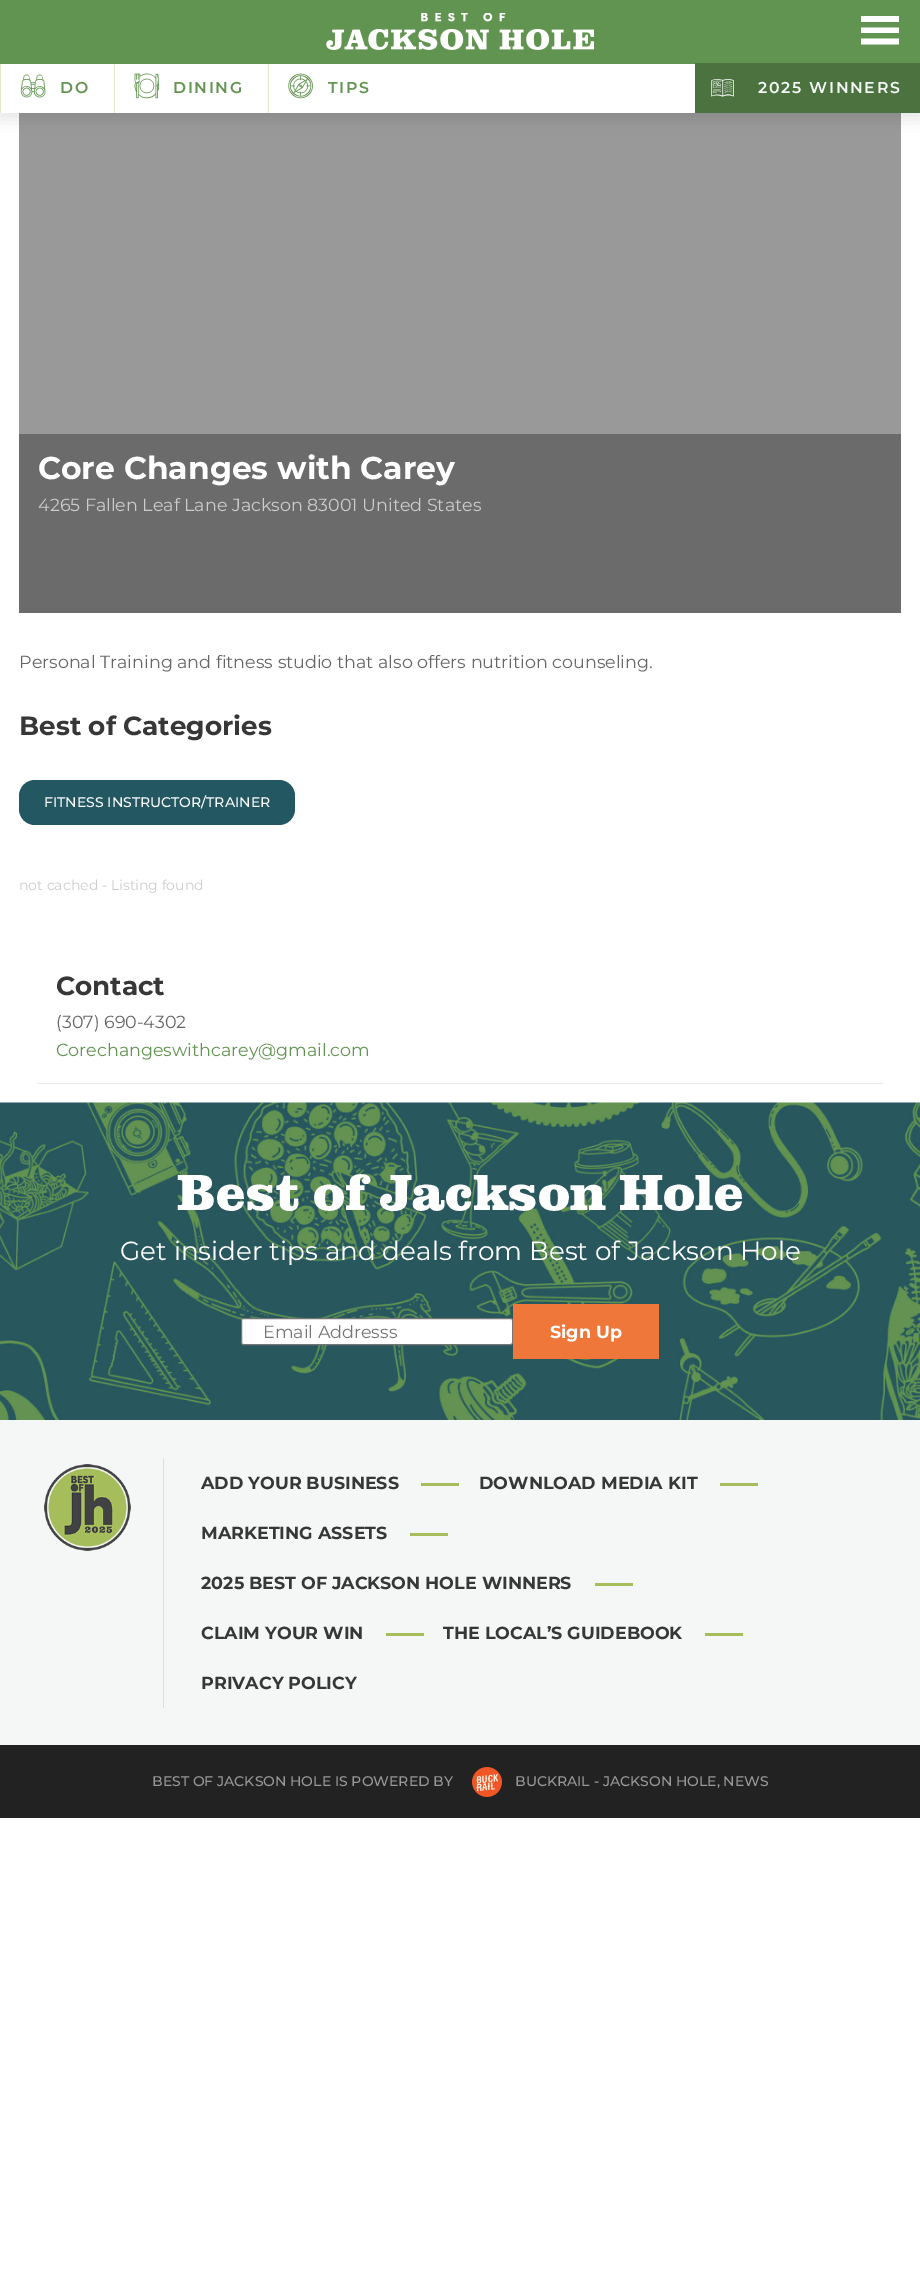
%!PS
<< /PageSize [920 2279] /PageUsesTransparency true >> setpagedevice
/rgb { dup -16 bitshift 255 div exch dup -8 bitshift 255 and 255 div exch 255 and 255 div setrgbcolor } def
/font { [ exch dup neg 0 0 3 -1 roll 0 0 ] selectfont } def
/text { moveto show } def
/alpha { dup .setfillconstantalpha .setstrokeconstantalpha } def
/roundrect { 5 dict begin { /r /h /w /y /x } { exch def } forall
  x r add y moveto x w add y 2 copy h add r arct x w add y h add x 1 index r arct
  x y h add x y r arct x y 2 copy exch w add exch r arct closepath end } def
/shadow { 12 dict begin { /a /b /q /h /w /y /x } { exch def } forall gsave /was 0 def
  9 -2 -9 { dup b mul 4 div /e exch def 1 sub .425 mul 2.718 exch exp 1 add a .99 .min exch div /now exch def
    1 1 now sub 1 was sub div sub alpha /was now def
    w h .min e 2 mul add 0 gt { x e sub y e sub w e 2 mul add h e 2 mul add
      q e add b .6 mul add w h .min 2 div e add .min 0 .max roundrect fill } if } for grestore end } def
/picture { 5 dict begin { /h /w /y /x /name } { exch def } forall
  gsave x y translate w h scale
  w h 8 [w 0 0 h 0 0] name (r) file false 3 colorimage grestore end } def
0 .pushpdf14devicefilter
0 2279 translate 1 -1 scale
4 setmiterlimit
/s1 { /Montserrat-Bold 31.5 font 16#FFFFFF rgb } def
/s2 { /Montserrat-Regular 17.5 font 16#CCCCCC rgb } def
/s3 { /Montserrat-Regular 17.5 font 16#666666 rgb } def
/s4 { /Montserrat-Bold 26.25 font 16#373737 rgb } def
/s5 { /Montserrat-Medium 14 font 16#FFFFFF rgb } def
/s6 { /Montserrat-Regular 14 font 16#CCCCCC rgb } def
/s7 { /Montserrat-Regular 17.5 font 16#629451 rgb } def
/s8 { /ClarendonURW-ExtraBold 52.5 font 16#FFFFFF rgb } def
/s9 { /Montserrat-Regular 26.25 font 16#FFFFFF rgb } def
/s10 { /Montserrat-Regular 17.5 font 16#757575 rgb } def
/s11 { /Montserrat-Bold 17.5 font 16#FFFFFF rgb } def
/s12 { /Montserrat-Bold 17.5 font 16#373737 rgb } def
/s13 { /Montserrat-Medium 14 font 16#999999 rgb } def
16#FFFFFF rgb
0 0 920 2279 rectfill
16#000000 rgb
-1 5 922 114 0 7.5 0.1 shadow
16#FFFFFF rgb
1 64 694 49 rectfill
16#629451 rgb
0 0 920 63 rectfill
(pic1.raw) 326 13 268 37 picture
16#E1E9C9 rgb
0 63 1 50 rectfill
114 63 1 50 rectfill
268 63 1 50 rectfill
16#629451 rgb
0 63 695 1 rectfill
16#FFFFFF rgb
899 22 moveto 899 16 lineto 861 16 lineto 861 22 lineto closepath 899 33 moveto 899 27.5 lineto 861 27.5 lineto 861 33 lineto closepath 899 44.5 moveto 899 38.5 lineto 861 38.5 lineto 861 44.5 lineto closepath fill
(pic2.raw) 20 74 26 24 picture
/Montserrat-SemiBold 15.75 font
16#629451 rgb
60 93 moveto 1.6 0 (DO) ashow
(pic3.raw) 134 73 26 26 picture
173 93 moveto 1.6 0 (DINING) ashow
(pic4.raw) 288 73 25 26 picture
328 93 moveto 1.6 0 (TIPS) ashow
16#4C733F rgb
695 63 225 50 rectfill
(pic5.raw) 711 79 23 18 picture
16#F4F7F6 rgb
758 93 moveto 1 0 32 1.6 0 (2025 WINNERS) awidthshow
0.4 alpha
16#000000 rgb
19 113 882 321 rectfill
1 alpha
16#6B6B6B rgb
19 434 882 179 rectfill
s1
(Core Changes with Carey) 38 479 text
s2
(4265 Fallen Leaf Lane Jackson 83001 United States) 38 511 text
s3
(Personal Training and fitness studio that also offers nutrition counseling.) 19 668 text
s4
(Best of Categories) 19 735 text
16#235862 rgb
19 780 276 45 16 roundrect fill
s5
(FITNESS INSTRUCTOR/TRAINER) 44 807 text
s6
(not cached - Listing found) 19 890 text
16#E6EAEA rgb
38 1083 845 1 rectfill
s4
(Contact) 56 995 text
s3
(\(307\) 690-4302) 56 1028 text
s7
(Corechangeswithcarey@gmail.com) 56 1056 text
(pic6.raw) 0 1102 920 318 picture
s8
(Best of Jackson Hole) 177 1210 text
s9
(Get insider tips and deals from Best of Jackson Hole) 120 1260 text
241.5 1318.5 271 26 2 roundrect gsave fill grestore
16#767676 rgb
stroke
s10
(Email Addresss) 263 1338 text
16#EF7739 rgb
513 1304 146 55 rectfill
s11
(Sign Up) 550 1338 text
16#F4F7F6 rgb
0 1420 920 325 rectfill
(pic7.raw) 44 1464 87 87 picture
16#DCDEDD rgb
163 1458 1 250 rectfill
s12
(ADD YOUR BUSINESS) 201 1489 text
16#A5BE5B rgb
421 1483 38 3 rectfill
s12
(DOWNLOAD MEDIA KIT) 479 1489 text
16#A5BE5B rgb
720 1483 38 3 rectfill
s12
(MARKETING ASSETS) 201 1539 text
16#A5BE5B rgb
410 1533 38 3 rectfill
s12
(2025 BEST OF JACKSON HOLE WINNERS) 201 1589 text
16#A5BE5B rgb
595 1583 38 3 rectfill
s12
(CLAIM YOUR WIN) 201 1639 text
16#A5BE5B rgb
386 1633 38 3 rectfill
s12
(THE LOCAL’S GUIDEBOOK) 443 1639 text
16#A5BE5B rgb
705 1633 38 3 rectfill
s12
(PRIVACY POLICY) 201 1689 text
16#222222 rgb
0 1745 920 73 rectfill
s13
(BEST OF JACKSON HOLE IS POWERED BY) 152 1786 text
(pic8.raw) 472 1767 30 30 picture
(BUCKRAIL - JACKSON HOLE, NEWS) 515 1786 text
.poppdf14devicefilter showpage
